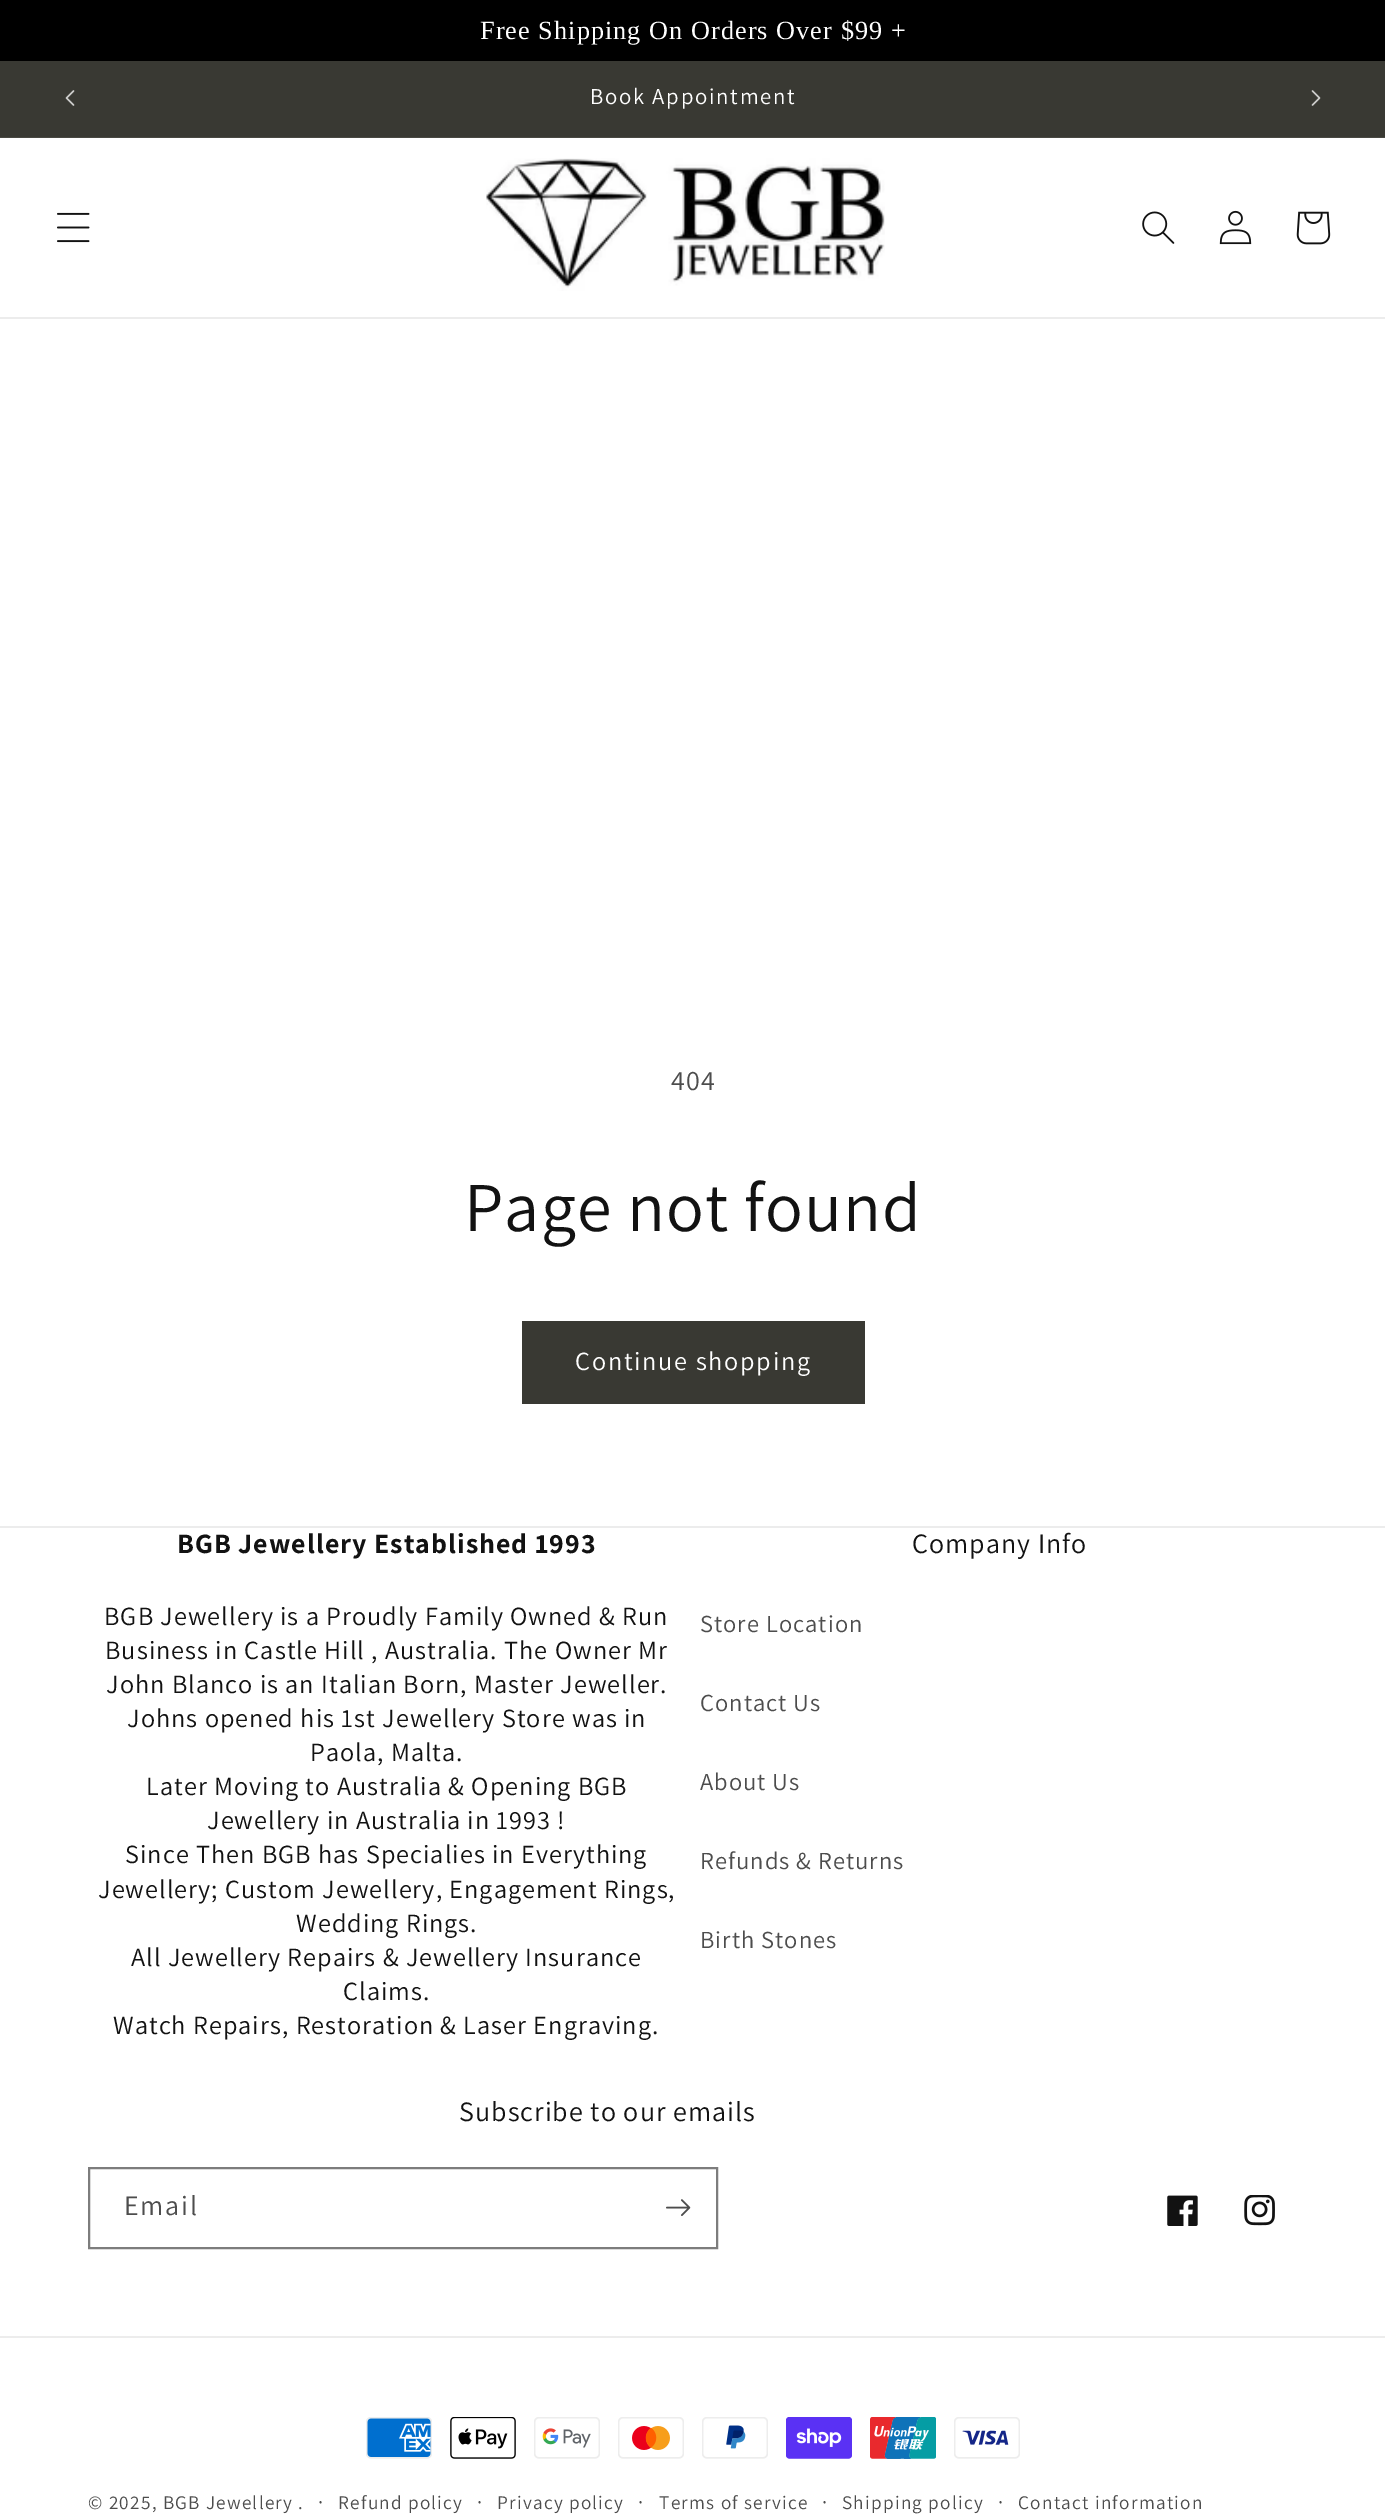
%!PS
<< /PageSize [1385 2519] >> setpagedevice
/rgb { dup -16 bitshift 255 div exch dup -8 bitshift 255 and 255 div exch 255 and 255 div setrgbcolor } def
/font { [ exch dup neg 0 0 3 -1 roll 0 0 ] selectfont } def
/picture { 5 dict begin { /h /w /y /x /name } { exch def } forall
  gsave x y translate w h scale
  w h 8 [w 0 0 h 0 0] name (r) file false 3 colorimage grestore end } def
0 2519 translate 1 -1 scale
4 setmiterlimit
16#FFFFFF rgb
0 0 1385 2519 rectfill
16#000000 rgb
0 0 1385 61 rectfill
/LiberationSerif-Regular 26.25 font
16#FFFFFF rgb
480 39 moveto 1.05 0 (Free Shipping On Orders Over $99 +) ashow
16#393933 rgb
0 61 1385 76 rectfill
16#494943 rgb
0 137 1385 1 rectfill
(pic1.raw) 65 90 10 16 picture
/Assistant-Regular 22.75 font
16#FFFFFF rgb
590 104 moveto 1.75 0 (Book Appointment) ashow
(pic2.raw) 1311 90 10 16 picture
16#ECECEC rgb
0 317 1385 2 rectfill
(pic3.raw) 57 212 33 31 picture
(pic4.raw) 486 158 399 133 picture
(pic5.raw) 1142 211 33 33 picture
(pic6.raw) 1219 210 33 35 picture
(pic7.raw) 1296 211 35 34 picture
/Assistant-Regular 28 font
16#4D4D4D rgb
671 1090 moveto 1.05 0 (404) ashow
/Assistant-Regular 70 font
16#121212 rgb
464 1231 moveto 1.05 0 (Page not found) ashow
16#393933 rgb
522 1321 343 83 rectfill
/Assistant-Regular 26.25 font
16#FFFFFF rgb
575 1370 moveto 1.75 0 (Continue shopping) ashow
16#ECECEC rgb
0 1526 1385 2 rectfill
/Assistant-Bold 28 font
16#121212 rgb
177 1553 moveto 1.05 0 (BGB Jewellery Established 1993) ashow
/Assistant-Regular 26.25 font
104 1625 moveto 1.05 0 (BGB Jewellery is a Proudly Family Owned & Run) ashow
105 1659 moveto 1.05 0 (Business in Castle Hill , Australia. The Owner Mr) ashow
106 1693 moveto 1.05 0 (John Blanco is an Italian Born, Master Jeweller.) ashow
127 1727 moveto 1.05 0 (Johns opened his 1st Jewellery Store was in) ashow
310 1761 moveto 1.05 0 (Paola, Malta.) ashow
146 1795 moveto 1.05 0 (Later Moving to Australia & Opening BGB) ashow
207 1829 moveto 1.05 0 (Jewellery in Australia in 1993 !) ashow
125 1863 moveto 1.05 0 (Since Then BGB has Specialies in Everything) ashow
98 1898 moveto 1.05 0 (Jewellery; Custom Jewellery, Engagement Rings,) ashow
296 1932 moveto 1.05 0 (Wedding Rings.) ashow
131 1966 moveto 1.05 0 (All Jewellery Repairs & Jewellery Insurance) ashow
343 2000 moveto 1.05 0 (Claims.) ashow
113 2034 moveto 1.05 0 (Watch Repairs, Restoration & Laser Engraving.) ashow
/Assistant-Regular 28 font
912 1553 moveto 1.05 0 (Company Info) ashow
/Assistant-Regular 24.5 font
16#4D4D4D rgb
700 1632 moveto 1.05 0 (Store Location) ashow
700 1711 moveto 1.05 0 (Contact Us) ashow
700 1790 moveto 1.05 0 (About Us) ashow
700 1869 moveto 1.05 0 (Refunds & Returns) ashow
700 1948 moveto 1.05 0 (Birth Stones) ashow
/Assistant-Regular 28 font
16#121212 rgb
459 2121 moveto 1.05 0 (Subscribe to our emails) ashow
16#7D7D7D rgb
2 setlinewidth
89 2168 628 80 rectstroke
16#4D4D4D rgb
124 2215 moveto 1.75 0 (Email) ashow
(pic8.raw) 666 2199 25 17 picture
(pic9.raw) 1167 2195 31 31 picture
(pic10.raw) 1244 2195 31 31 picture
16#ECECEC rgb
0 2336 1385 2 rectfill
(pic11.raw) 366 2417 66 42 picture
(pic12.raw) 450 2417 66 42 picture
(pic13.raw) 534 2417 66 42 picture
(pic14.raw) 618 2417 66 42 picture
(pic15.raw) 702 2417 66 42 picture
(pic16.raw) 786 2417 66 42 picture
(pic17.raw) 870 2417 66 42 picture
(pic18.raw) 954 2417 66 42 picture
/Assistant-Regular 19.25 font
16#4D4D4D rgb
88 2509 moveto 1.25 0 (© 2025, BGB Jewellery) ashow
298 2509 moveto 1.25 0 (.) ashow
/Assistant-Regular 21 font
318 2509 moveto 1.25 0 (·) ashow
/Assistant-Regular 19.25 font
338 2509 moveto 1.25 0 (Refund policy) ashow
/Assistant-Regular 21 font
477 2509 moveto 1.25 0 (·) ashow
/Assistant-Regular 19.25 font
497 2509 moveto 1.25 0 (Privacy policy) ashow
/Assistant-Regular 21 font
638 2509 moveto 1.25 0 (·) ashow
/Assistant-Regular 19.25 font
659 2509 moveto 1.25 0 (Terms of service) ashow
/Assistant-Regular 21 font
822 2509 moveto 1.25 0 (·) ashow
/Assistant-Regular 19.25 font
842 2509 moveto 1.25 0 (Shipping policy) ashow
/Assistant-Regular 21 font
998 2509 moveto 1.25 0 (·) ashow
/Assistant-Regular 19.25 font
1018 2509 moveto 1.25 0 (Contact information) ashow
showpage
